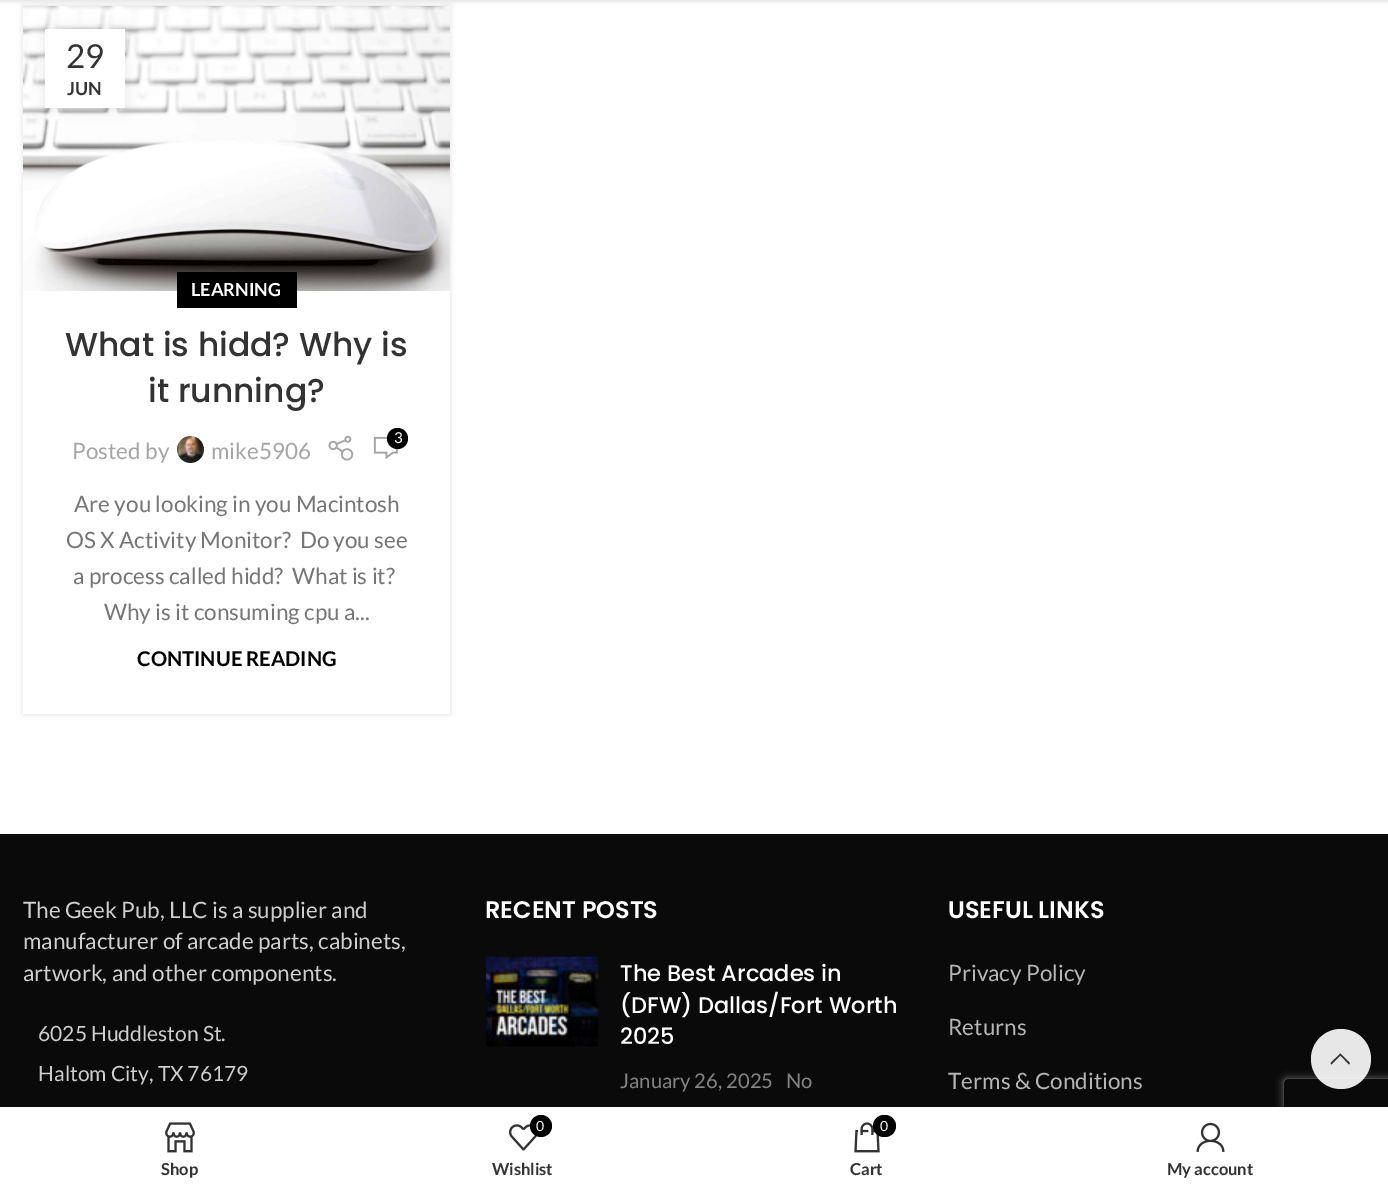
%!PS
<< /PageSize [1388 1189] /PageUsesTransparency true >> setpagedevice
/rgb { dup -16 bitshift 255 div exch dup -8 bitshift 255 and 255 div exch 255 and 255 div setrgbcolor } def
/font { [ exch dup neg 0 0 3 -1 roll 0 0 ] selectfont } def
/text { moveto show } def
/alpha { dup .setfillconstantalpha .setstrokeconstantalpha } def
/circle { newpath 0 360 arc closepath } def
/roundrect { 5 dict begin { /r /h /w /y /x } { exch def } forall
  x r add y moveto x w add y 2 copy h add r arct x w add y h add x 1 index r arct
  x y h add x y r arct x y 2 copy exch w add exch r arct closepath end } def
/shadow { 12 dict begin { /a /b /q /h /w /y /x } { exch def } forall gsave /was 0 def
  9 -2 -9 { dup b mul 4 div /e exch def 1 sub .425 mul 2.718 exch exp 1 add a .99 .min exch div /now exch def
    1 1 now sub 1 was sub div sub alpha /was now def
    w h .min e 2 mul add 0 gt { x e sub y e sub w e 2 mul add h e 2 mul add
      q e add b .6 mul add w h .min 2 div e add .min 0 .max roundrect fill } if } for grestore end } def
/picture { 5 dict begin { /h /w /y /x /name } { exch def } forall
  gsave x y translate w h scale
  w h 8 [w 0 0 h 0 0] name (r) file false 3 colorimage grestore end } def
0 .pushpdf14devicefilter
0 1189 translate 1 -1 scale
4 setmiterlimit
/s1 { /Lato-Regular 33 font 16#333333 rgb } def
/s2 { /Lato-Bold 18 font 16#333333 rgb } def
/s3 { /Lato-Bold 18 font 16#FFFFFF rgb } def
/s4 { /Poppins-Medium 33 font 16#333333 rgb } def
/s5 { /Lato-Regular 22.5 font 16#A5A5A5 rgb } def
/s6 { /Lato-Regular 15 font 16#FFFFFF rgb } def
/s7 { /Lato-Regular 22.5 font 16#767676 rgb } def
/s8 { /Lato-Bold 20.25 font 16#000000 rgb } def
/s9 { /Lato-Regular 22.5 font 16#CECECE rgb } def
/s10 { /Lato-Regular 21 font 16#CECECE rgb } def
/s11 { /Poppins-SemiBold 24 font 16#FFFFFF rgb } def
/s12 { /Poppins-Medium 22.5 font 16#FFFFFF rgb } def
/s13 { /Lato-Regular 20.25 font 16#858585 rgb } def
/s14 { /Lato-Regular 22.5 font 16#B6B6B6 rgb } def
/s15 { /Lato-Bold 16.5 font 16#333333 rgb } def
/s16 { /Lato-Regular 14 font 16#FFFFFF rgb } def
16#FFFFFF rgb
0 0 1388 1189 rectfill
gsave
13 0 moveto 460 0 lineto 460 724 lineto 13 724 lineto closepath 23 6 moveto 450 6 lineto 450 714 lineto 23 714 lineto closepath eoclip newpath
16#000000 rgb
23 6 427 708 0 3 0.12 shadow
grestore
(pic1.raw) 23 6 427 285 picture
16#000000 rgb
0 -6 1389 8 0 2 0.1 shadow
45 29 80 79 0 7 0.1 shadow
16#FFFFFF rgb
45 29 80 79 rectfill
s1
(29) 66 68 text
s2
(JUN) 67 95 text
16#000000 rgb
177 272 120 36 rectfill
s3
(LEARNING) 191 296 text
s4
(What is hidd? Why is) 65 356 text
(it running?) 148 402 text
s5
(Posted by) 72 459 text
(pic2.raw) 177 436 27 27 picture
(mike5906) 211 459 text
(pic3.raw) 328 435 26 26 picture
(pic4.raw) 373 436 25 24 picture
16#000000 rgb
397.5 438.5 10.5 circle fill
s6
(3) 394 443 text
s7
(Are you looking in you Macintosh) 74 512 text
(OS X Activity Monitor?  Do you see) 66 548 text
(a process called hidd?  What is it?) 73 584 text
(Why is it consuming cpu a...) 104 620 text
s8
(CONTINUE READING) 137 666 text
16#0A0A0A rgb
0 834 1388 273 rectfill
s9
(The Geek Pub, LLC is a supplier and) 23 918 text
(manufacturer of arcade parts, cabinets,) 23 949 text
(artwork, and other components.) 23 981 text
s10
(6025 Huddleston St.) 38 1041 text
(Haltom City, TX 76179) 38 1081 text
s11
(RECENT POSTS) 485 918 text
(pic5.raw) 486 956 113 91 picture
s12
(The Best Arcades in) 620 981 text
(\(DFW\) Dallas/Fort Worth) 620 1013 text
(2025) 620 1044 text
s13
(January 26, 2025) 620 1088 text
(No) 786 1088 text
s11
(USEFUL LINKS) 948 918 text
s14
(Privacy Policy) 948 981 text
(Returns) 948 1035 text
(Terms & Conditions) 948 1089 text
gsave
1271 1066 moveto 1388 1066 lineto 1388 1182 lineto 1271 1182 lineto closepath 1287 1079 moveto 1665 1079 lineto 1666.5 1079 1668 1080.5 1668 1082 curveto 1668 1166 lineto 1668 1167.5 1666.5 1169 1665 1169 curveto 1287 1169 lineto 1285.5 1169 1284 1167.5 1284 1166 curveto 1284 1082 lineto 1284 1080.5 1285.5 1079 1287 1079 curveto closepath eoclip newpath
16#808080 rgb
1284 1079 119 90 3 4 1 shadow
grestore
0.9 alpha
16#FFFFFF rgb
1341 1059 30 circle fill
1 alpha
16#333333 rgb
1349 1064.5 moveto 1350 1063 lineto 1340.5 1053.5 lineto 1330.5 1063 lineto 1331.5 1064.5 lineto 1340.5 1055.5 lineto closepath fill
16#000000 rgb
0 1107 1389 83 0 7 0.12 shadow
16#FFFFFF rgb
0 1107 1388 82 rectfill
(pic6.raw) 165 1122 30 31 picture
s15
(Shop) 161 1175 text
(pic7.raw) 509 1124 28 27 picture
16#000000 rgb
541 1126 11 circle fill
s16
(0) 536 1131 text
s15
(Wishlist) 492 1175 text
(pic8.raw) 854 1122 26 31 picture
16#000000 rgb
873 1115 23 22 11 roundrect fill
s16
(0) 880 1131 text
s15
(Cart) 850 1175 text
(pic9.raw) 1196 1122 29 30 picture
(My account) 1167 1175 text
.poppdf14devicefilter showpage
